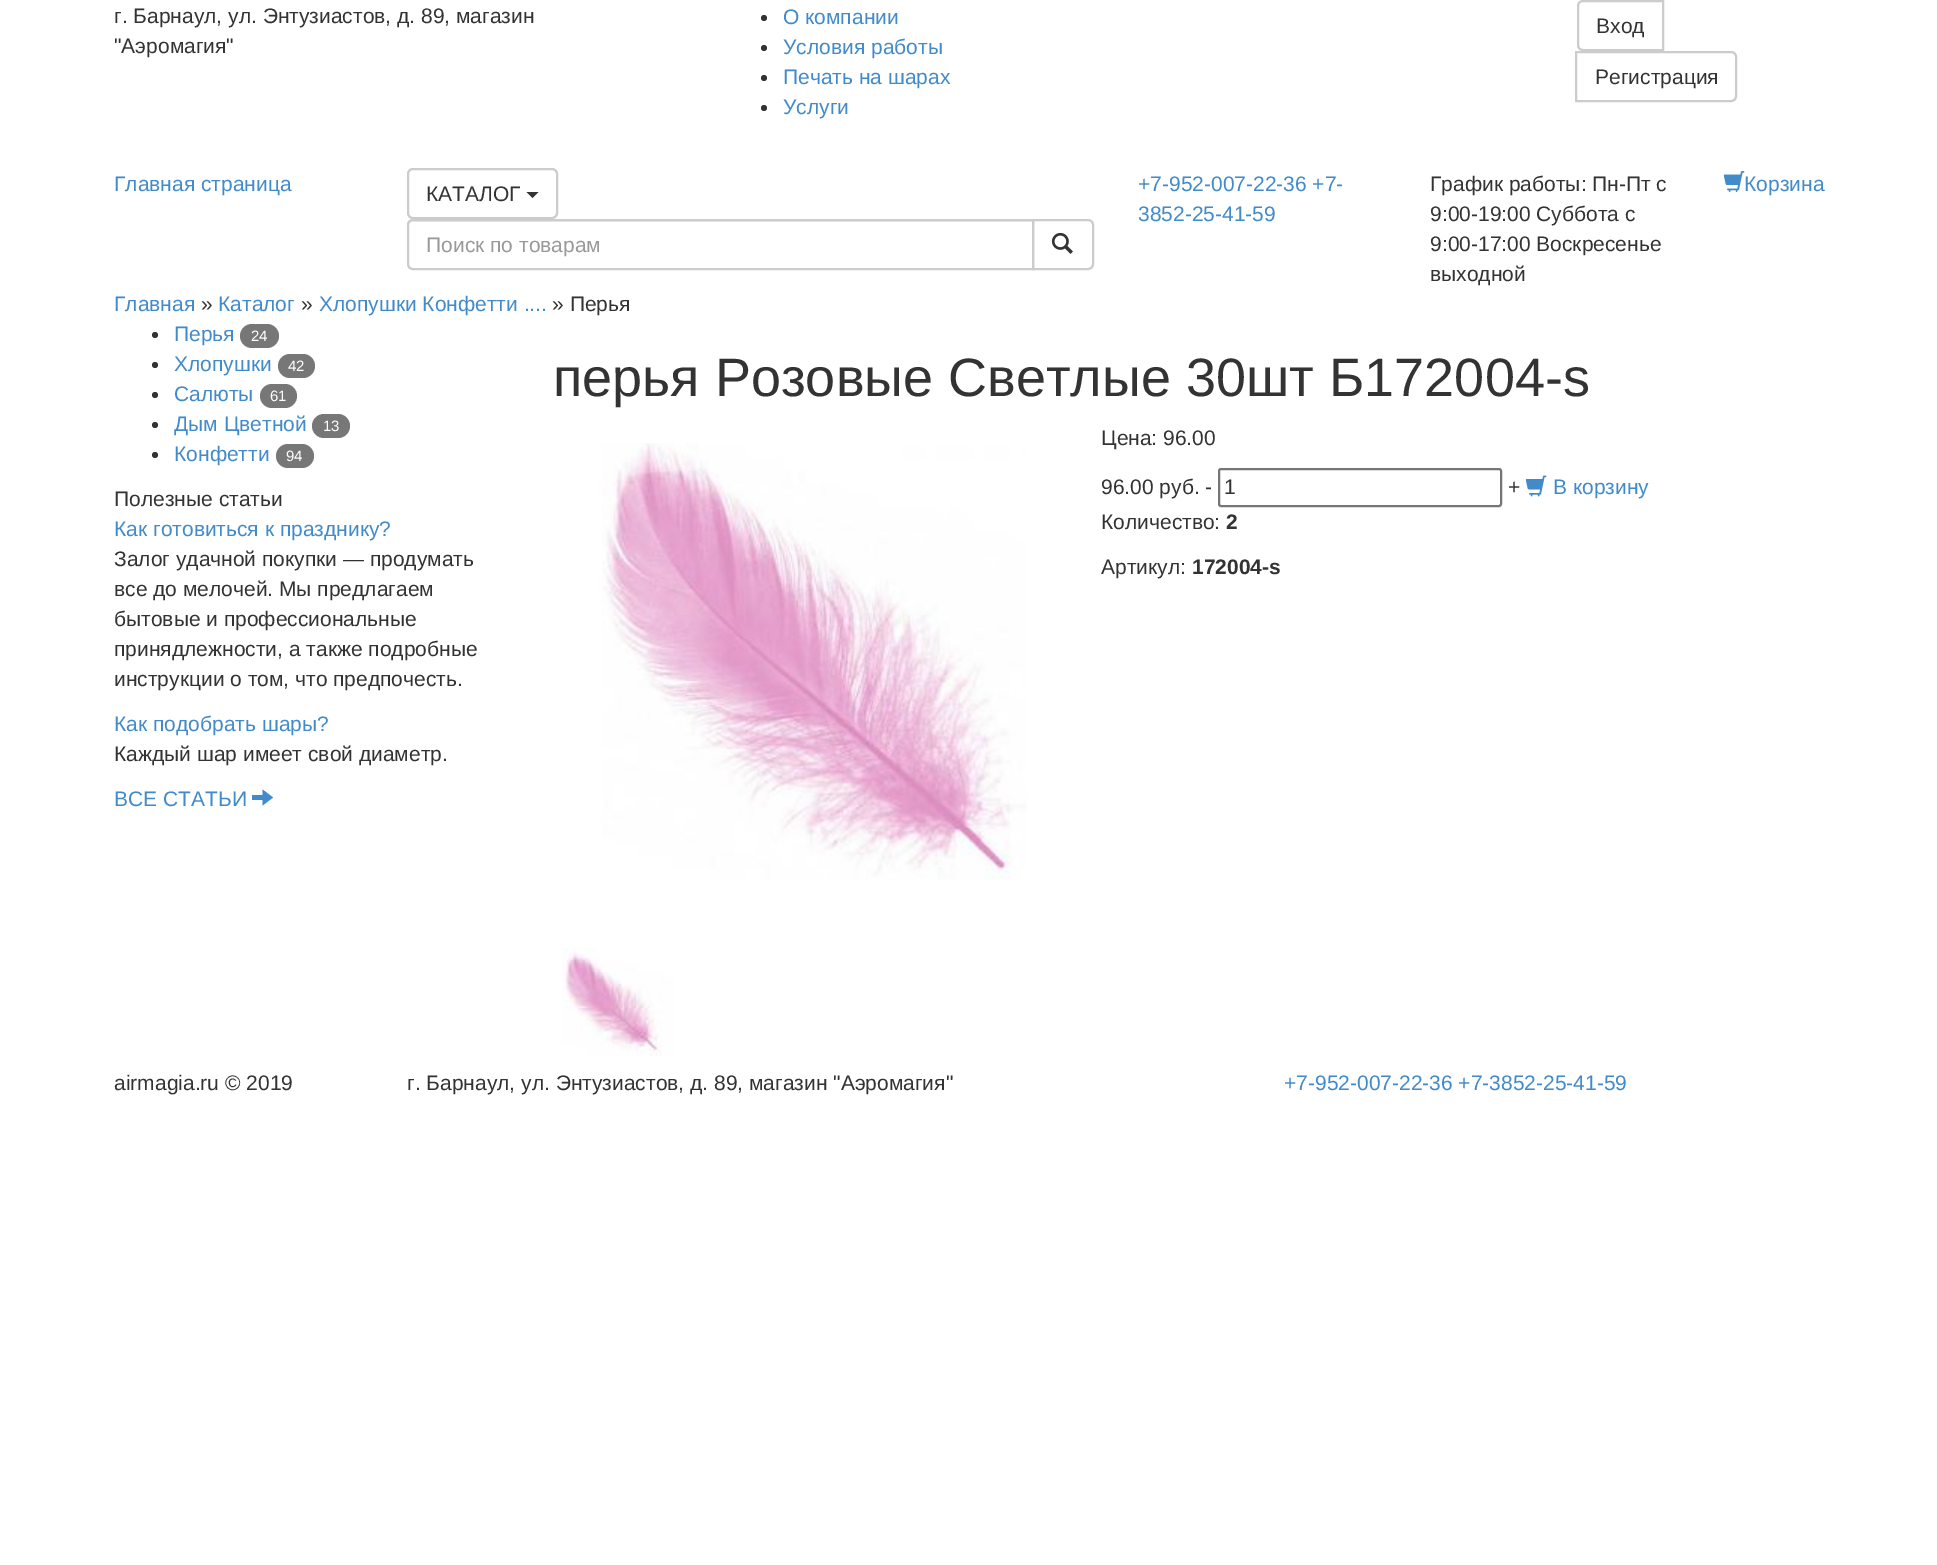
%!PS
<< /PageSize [1937 1565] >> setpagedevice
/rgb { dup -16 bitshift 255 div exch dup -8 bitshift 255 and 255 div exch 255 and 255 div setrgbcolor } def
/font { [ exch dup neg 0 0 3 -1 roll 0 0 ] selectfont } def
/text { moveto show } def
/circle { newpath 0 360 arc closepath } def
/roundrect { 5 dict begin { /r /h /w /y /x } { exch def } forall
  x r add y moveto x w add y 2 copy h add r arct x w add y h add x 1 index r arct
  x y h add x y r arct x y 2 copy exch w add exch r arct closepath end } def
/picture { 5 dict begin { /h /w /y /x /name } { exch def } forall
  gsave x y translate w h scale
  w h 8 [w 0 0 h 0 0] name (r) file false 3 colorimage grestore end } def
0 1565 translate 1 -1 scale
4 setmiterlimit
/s1 { /LiberationSans-Regular 21 font 16#333333 rgb } def
/s2 { /LiberationSans-Regular 21 font 16#428BCA rgb } def
/s3 { /LiberationSans-Regular 21 font 16#999999 rgb } def
/s4 { /LiberationSans-Regular 15 font 16#FFFFFF rgb } def
/s5 { /LiberationSans-Regular 54 font 16#333333 rgb } def
/s6 { /LiberationSans-Bold 21 font 16#333333 rgb } def
16#FFFFFF rgb
0 0 1937 1565 rectfill
s1
(г. Барнаул, ул. Энтузиастов, д. 89, магазин) 114 23 text
("Аэромагия") 114 53 text
764 18 3 circle fill
s2
(О компании) 783 24 text
16#333333 rgb
764 48 3 circle fill
s2
(Условия работы) 783 54 text
16#333333 rgb
764 78 3 circle fill
s2
(Печать на шарах) 783 84 text
16#333333 rgb
764 108 3 circle fill
s2
(Услуги) 783 114 text
16#CCCCCC rgb
2 setlinewidth
1583 1 moveto 1663 1 lineto 1663 50 lineto 1583 50 lineto 1580 50 1578 48 1578 45 curveto 1578 6 lineto 1578 3 1580 1 1583 1 curveto closepath stroke
s1
(Вход) 1596 33 text
16#CCCCCC rgb
1576 52 moveto 1731 52 lineto 1734 52 1736 54 1736 57 curveto 1736 96 lineto 1736 99 1734 101 1731 101 curveto 1576 101 lineto closepath stroke
s1
(Регистрация) 1595 84 text
s2
(Главная страница) 114 191 text
16#CCCCCC rgb
408 169 149 49 5 roundrect stroke
s1
(КАТАЛОГ) 426 201 text
526.5 192 moveto 538.5 192 lineto 532.5 198 lineto closepath fill
16#CCCCCC rgb
1033 220 moveto 1088 220 lineto 1091 220 1093 222 1093 225 curveto 1093 264 lineto 1093 267 1091 269 1088 269 curveto 1033 269 lineto closepath stroke
16#FFFFFF rgb
413 219 moveto 1034 219 lineto 1034 270 lineto 413 270 lineto 409.5 270 407 267.5 407 264 curveto 407 225 lineto 407 221.5 409.5 219 413 219 curveto closepath fill
16#ECECEC rgb
412 222 moveto 1032 222 lineto 1032 221 lineto 413 221 lineto 410 221 408 223 408 226 curveto 408 224 410 222 412 222 curveto closepath fill
16#CCCCCC rgb
413 220 moveto 1033 220 lineto 1033 269 lineto 413 269 lineto 410 269 408 267 408 264 curveto 408 225 lineto 408 222 410 220 413 220 curveto closepath stroke
s3
(Поиск по товарам) 426 252 text
(pic1.raw) 1051 232 22 22 picture
s2
(+7-952-007-22-36 +7-) 1138 191 text
(3852-25-41-59) 1138 221 text
s1
(График работы: Пн-Пт с) 1430 191 text
(9:00-19:00 Суббота с) 1430 221 text
(9:00-17:00 Воскресенье) 1430 251 text
(выходной) 1430 281 text
(pic2.raw) 1723 171 22 21 picture
s2
(Корзина) 1744 191 text
(Главная) 114 311 text
s1
(») 201 311 text
s2
(Каталог) 218 311 text
s1
(») 301 311 text
s2
(Хлопушки Конфетти ....) 319 311 text
s1
(» Перья) 552 311 text
155 335 3 circle fill
s2
(Перья) 174 341 text
16#777777 rgb
240 324 39 24 12 roundrect fill
s4
(24) 251 341 text
16#333333 rgb
155 365 3 circle fill
s2
(Хлопушки) 174 371 text
16#777777 rgb
278 354 37 24 12 roundrect fill
s4
(42) 288 371 text
16#333333 rgb
155 395 3 circle fill
s2
(Салюты) 174 401 text
16#777777 rgb
260 384 37 24 12 roundrect fill
s4
(61) 270 401 text
16#333333 rgb
155 425 3 circle fill
s2
(Дым Цветной) 174 431 text
16#777777 rgb
312 414 38 24 12 roundrect fill
s4
(13) 323 431 text
16#333333 rgb
155 455 3 circle fill
s2
(Конфетти) 174 461 text
16#777777 rgb
276 444 38 24 12 roundrect fill
s4
(94) 286 461 text
s1
(Полезные статьи) 114 506 text
s2
(Как готовиться к празднику?) 114 536 text
s1
(Залог удачной покупки — продумать) 114 566 text
(все до мелочей. Мы предлагаем) 114 596 text
(бытовые и профессиональные) 114 626 text
(принядлежности, а также подробные) 114 656 text
(инструкции о том, что предпочесть.) 114 686 text
s2
(Как подобрать шары?) 114 731 text
s1
(Каждый шар имеет свой диаметр.) 114 761 text
s2
(ВСЕ СТАТЬИ) 114 806 text
252 800 moveto 252 795 lineto 262.5 795 lineto 262.5 789.5 lineto 273 797.5 lineto 262.5 805.5 lineto 262.5 800 lineto closepath fill
s5
(перья Розовые Светлые 30шт Б172004-s) 553 396 text
(pic3.raw) 602 443 425 437 picture
(pic4.raw) 562 948 112 108 picture
s1
(Цена: 96.00) 1101 445 text
(96.00 руб. -) 1101 494 text
16#767676 rgb
1219 469 282 37 2 roundrect stroke
s1
(1) 1224 494 text
(+) 1508 494 text
(pic5.raw) 1525 475 22 22 picture
s2
(В корзину) 1553 494 text
s1
(Количество:) 1101 529 text
s6
(2) 1226 529 text
s1
(Артикул:) 1101 574 text
s6
(172004-s) 1192 574 text
s1
(airmagia.ru © 2019) 114 1090 text
(г. Барнаул, ул. Энтузиастов, д. 89, магазин "Аэромагия") 407 1090 text
s2
(+7-952-007-22-36 +7-3852-25-41-59) 1284 1090 text
showpage
